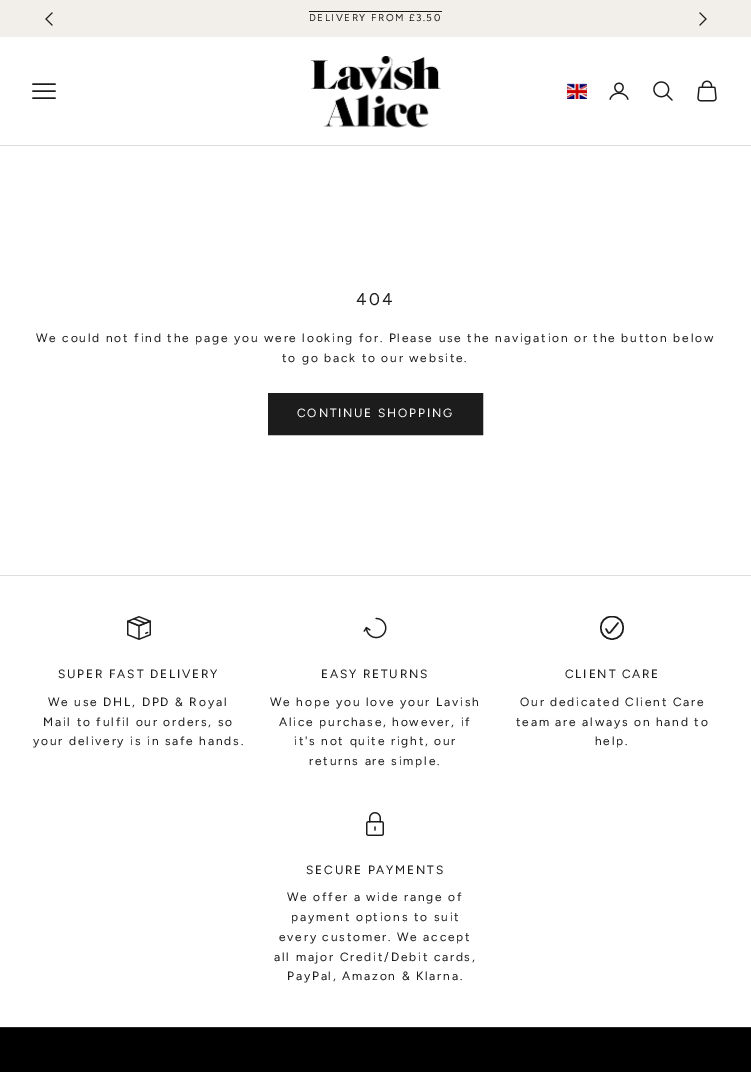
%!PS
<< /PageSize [751 1072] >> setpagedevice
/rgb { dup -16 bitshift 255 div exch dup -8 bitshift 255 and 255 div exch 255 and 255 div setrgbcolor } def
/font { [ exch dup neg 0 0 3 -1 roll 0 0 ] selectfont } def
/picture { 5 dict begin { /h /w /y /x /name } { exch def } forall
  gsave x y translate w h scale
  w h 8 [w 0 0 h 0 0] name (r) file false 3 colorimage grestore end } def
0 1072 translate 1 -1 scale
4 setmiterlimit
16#FFFFFF rgb
0 0 751 1072 rectfill
16#F2EEEA rgb
0 0 751 37 rectfill
16#1C1C1C rgb
0.8 setlinewidth
2 setlinecap
52 13 moveto 46 19 lineto 52 25 lineto stroke
/Figtree-Regular 10 font
309 21 moveto 1.5 0 (DELIVERY FROM £3.50) ashow
309 11 133 1 rectfill
700 25 moveto 706 19 lineto 700 13 lineto stroke
16#DDDDDD rgb
0 145 751 1 rectfill
16#1C1C1C rgb
1.5 setlinewidth
33 98 moveto 55 98 lineto 33 91 moveto 55 91 lineto 33 84 moveto 55 84 lineto stroke
(pic1.raw) 311 56 130 72 picture
(pic2.raw) 567 83 20 16 picture
(pic3.raw) 609 82 20 18 picture
(pic4.raw) 653 81 20 20 picture
(pic5.raw) 697 80 20 22 picture
/Figtree-Regular 17 font
356 305 moveto 2.5 0 (404) ashow
/Figtree-Regular 12 font
36 342 moveto 1.8 0 (We could not find the page you were looking for. Please use the navigation or the button below) ashow
282 362 moveto 1.8 0 (to go back to our website.) ashow
268.5 393.5 moveto 482.5 393.5 lineto 482.5 434.5 lineto 268.5 434.5 lineto closepath gsave fill grestore
1 setlinewidth
0 setlinecap
stroke
16#FFFFFF rgb
297 417 moveto 1.8 0 (CONTINUE SHOPPING) ashow
16#DDDDDD rgb
0 575 751 1 rectfill
(pic6.raw) 127 616 24 24 picture
16#1C1C1C rgb
58 678 moveto 1.8 0 (SUPER FAST DELIVERY) ashow
48 706 moveto 1.8 0 (We use DHL, DPD & Royal) ashow
43 726 moveto 1.8 0 (Mail to fulfil our orders, so) ashow
33 745 moveto 1.8 0 (your delivery is in safe hands.) ashow
(pic7.raw) 363 617 24 22 picture
321 678 moveto 1.8 0 (EASY RETURNS) ashow
270 706 moveto 1.8 0 (We hope you love your Lavish) ashow
279 726 moveto 1.8 0 (Alice purchase, however, if) ashow
294 745 moveto 1.8 0 (it's not quite right, our) ashow
309 765 moveto 1.8 0 (returns are simple.) ashow
1.5 setlinewidth
1 setlinecap
1 setlinejoin
606 629 moveto 608.5 633 608.5 635 611.5 631 curveto 618 623 lineto stroke
gsave
600 616 24 24 rectclip
612 639 moveto 627 639 627 616.5 612 616.5 curveto 597 616.5 597 639 612 639 curveto closepath stroke
grestore
565 678 moveto 1.8 0 (CLIENT CARE) ashow
520 706 moveto 1.8 0 (Our dedicated Client Care) ashow
516 726 moveto 1.8 0 (team are always on hand to) ashow
595 745 moveto 1.8 0 (help.) ashow
(pic8.raw) 366 812 18 24 picture
306 874 moveto 1.8 0 (SECURE PAYMENTS) ashow
287 901 moveto 1.8 0 (We offer a wide range of) ashow
291 921 moveto 1.8 0 (payment options to suit) ashow
279 941 moveto 1.8 0 (every customer. We accept) ashow
274 961 moveto 1.8 0 (all major Credit/Debit cards,) ashow
287 980 moveto 1.8 0 (PayPal, Amazon & Klarna.) ashow
16#000000 rgb
0 1028 751 44 rectfill
16#262626 rgb
0 1027 751 1 rectfill
showpage
